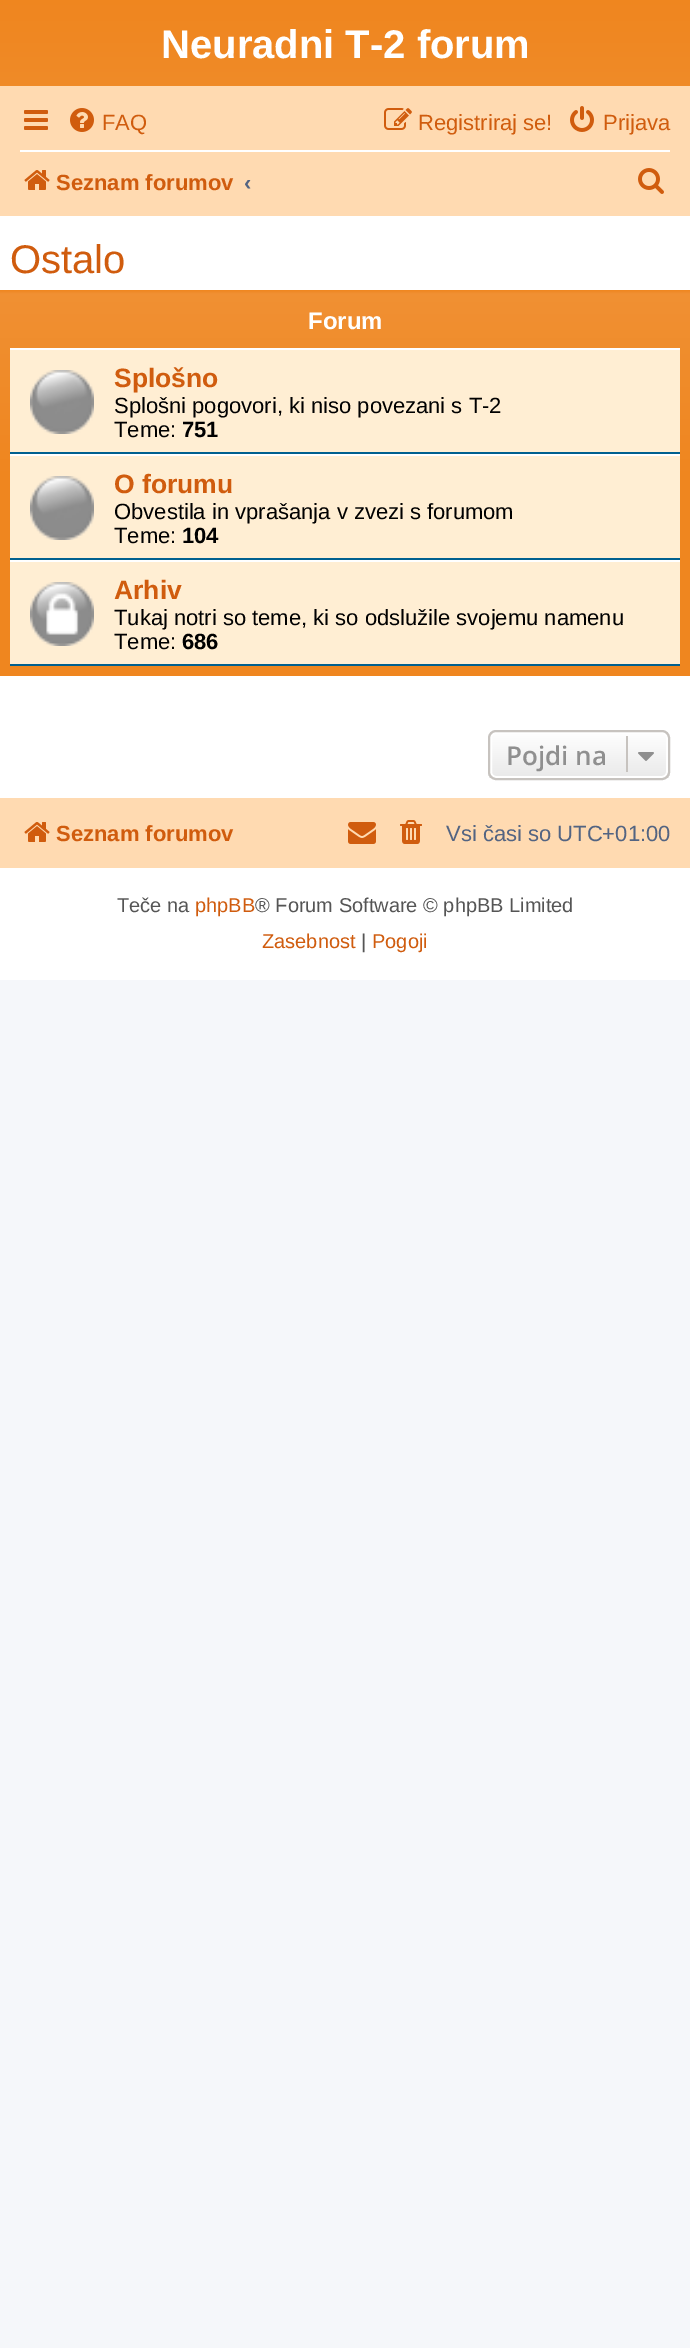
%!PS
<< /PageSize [690 2348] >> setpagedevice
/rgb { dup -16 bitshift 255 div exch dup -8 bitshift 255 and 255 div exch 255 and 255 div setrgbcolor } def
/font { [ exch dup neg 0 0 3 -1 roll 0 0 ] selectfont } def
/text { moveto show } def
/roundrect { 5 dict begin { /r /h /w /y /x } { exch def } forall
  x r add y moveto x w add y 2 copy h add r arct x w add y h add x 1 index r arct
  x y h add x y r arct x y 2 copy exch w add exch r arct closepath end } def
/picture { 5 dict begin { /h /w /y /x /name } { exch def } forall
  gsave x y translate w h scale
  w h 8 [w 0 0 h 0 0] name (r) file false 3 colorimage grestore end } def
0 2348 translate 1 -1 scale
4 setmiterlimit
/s1 { /LiberationSans-Bold 40 font 16#FFFFFF rgb } def
/s2 { /LiberationSans-Regular 22 font 16#D05C0E rgb } def
/s3 { /LiberationSans-Bold 22 font 16#D05C0E rgb } def
/s4 { /LiberationSans-Bold 22 font 16#536482 rgb } def
/s5 { /LiberationSans-Regular 40 font 16#D05C0E rgb } def
/s6 { /LiberationSans-Bold 24 font 16#FFFFFF rgb } def
/s7 { /LiberationSans-Bold 26.5 font 16#D05C0E rgb } def
/s8 { /LiberationSans-Regular 22 font 16#000000 rgb } def
/s9 { /LiberationSans-Bold 22 font 16#000000 rgb } def
/s10 { /OpenSans-SemiBold 26 font 16#8F8F8F rgb } def
/s11 { /LiberationSans-Regular 22 font 16#536482 rgb } def
/s12 { /LiberationSans-Regular 20 font 16#555555 rgb } def
/s13 { /LiberationSans-Regular 20 font 16#D05C0E rgb } def
16#F5F7FA rgb
0 0 690 2348 rectfill
16#FFFFFF rgb
0 216 690 764 rectfill
gsave 0 0 moveto 690 0 lineto 690 86 lineto 0 86 lineto closepath clip newpath
<< /ShadingType 2 /ColorSpace /DeviceRGB /Coords [345 0 345 184] /Extend [true true] /Function << /FunctionType 3 /Domain [0 1] /Functions [<< /FunctionType 2 /Domain [0 1] /C0 [0.937 0.525 0.122] /C1 [0.937 0.525 0.122] /N 1 >> << /FunctionType 2 /Domain [0 1] /C0 [0.937 0.525 0.122] /C1 [0.941 0.565 0.2] /N 1 >>] /Bounds [0.02] /Encode [0 1 0 1] >> >> shfill grestore
s1
(Neuradni T-2 forum) 161 58 text
16#FFDAB1 rgb
0 86 690 130 rectfill
(pic1.raw) 24 110 24 20 picture
(pic2.raw) 70 108 24 24 picture
s2
(FAQ) 102 130 text
(pic3.raw) 384 108 28 22 picture
(Registriraj se!) 418 130 text
(pic4.raw) 570 106 24 26 picture
(Prijava) 603 130 text
16#FFFFFF rgb
20 150 650 2 rectfill
(pic5.raw) 24 170 26 20 picture
s3
(Seznam forumov) 56 190 text
s4
(‹) 244 190 text
(pic6.raw) 638 168 26 26 picture
s5
(Ostalo) 10 273 text
gsave 0 290 moveto 690 290 lineto 690 676 lineto 0 676 lineto closepath clip newpath
<< /ShadingType 2 /ColorSpace /DeviceRGB /Coords [345 290 345 676] /Extend [true true] /Function << /FunctionType 3 /Domain [0 1] /Functions [<< /FunctionType 2 /Domain [0 1] /C0 [0.937 0.525 0.122] /C1 [0.941 0.565 0.2] /N 1 >> << /FunctionType 2 /Domain [0 1] /C0 [0.941 0.565 0.2] /C1 [0.937 0.525 0.122] /N 1 >> << /FunctionType 2 /Domain [0 1] /C0 [0.937 0.525 0.122] /C1 [0.937 0.525 0.122] /N 1 >>] /Bounds [0.01 0.48] /Encode [0 1 0 1 0 1] >> >> shfill grestore
s6
(Forum) 308 329 text
16#FFEED3 rgb
10 350 670 314 rectfill
16#FFFFFF rgb
10 348 670 2 rectfill
16#00608F rgb
10 452 670 2 rectfill
(pic7.raw) 30 370 64 64 picture
s7
(Splošno) 114 387 text
s8
(Splošni pogovori, ki niso povezani s T-2) 114 413 text
(Teme:) 114 437 text
s9
(751) 182 437 text
16#FFFFFF rgb
10 454 670 2 rectfill
16#00608F rgb
10 558 670 2 rectfill
(pic7.raw) 30 476 64 64 picture
s7
(O forumu) 114 493 text
s8
(Obvestila in vprašanja v zvezi s forumom) 114 519 text
(Teme:) 114 543 text
s9
(104) 182 543 text
16#FFFFFF rgb
10 560 670 2 rectfill
16#00608F rgb
10 664 670 2 rectfill
(pic8.raw) 30 582 64 64 picture
s7
(Arhiv) 114 599 text
s8
(Tukaj notri so teme, ki so odslužile svojemu namenu) 114 625 text
(Teme:) 114 649 text
s9
(686) 182 649 text
gsave
488 730 182 50 8 roundrect clip newpath
gsave 488 732 moveto 670 732 lineto 670 778 lineto 488 778 lineto closepath clip newpath
<< /ShadingType 2 /ColorSpace /DeviceRGB /Coords [579 732 579 778] /Extend [true true] /Function << /FunctionType 2 /Domain [0 1] /C0 [1 1 1] /C1 [0.914 0.914 0.914] /N 1 >> >> shfill grestore
grestore
16#FFFFFF rgb
2 setlinewidth
491 733 176 44 5 roundrect stroke
16#C7C3BF rgb
489 731 180 48 7 roundrect stroke
s10
(Pojdi na) 506 765 text
16#C7C3BF rgb
626 736 2 36 rectfill
(pic9.raw) 638 752 16 9 picture
16#FFDAB1 rgb
0 798 690 70 rectfill
(pic5.raw) 24 822 26 20 picture
s3
(Seznam forumov) 56 841 text
(pic10.raw) 348 822 28 22 picture
(pic11.raw) 400 820 22 24 picture
s11
(Vsi časi so UTC+01:00) 446 841 text
s12
(Teče na) 117 912 text
s13
(phpBB) 195 912 text
s12
(® Forum Software © phpBB Limited) 255 912 text
s13
(Zasebnost) 262 948 text
s12
(|) 361 948 text
s13
(Pogoji) 372 948 text
showpage
